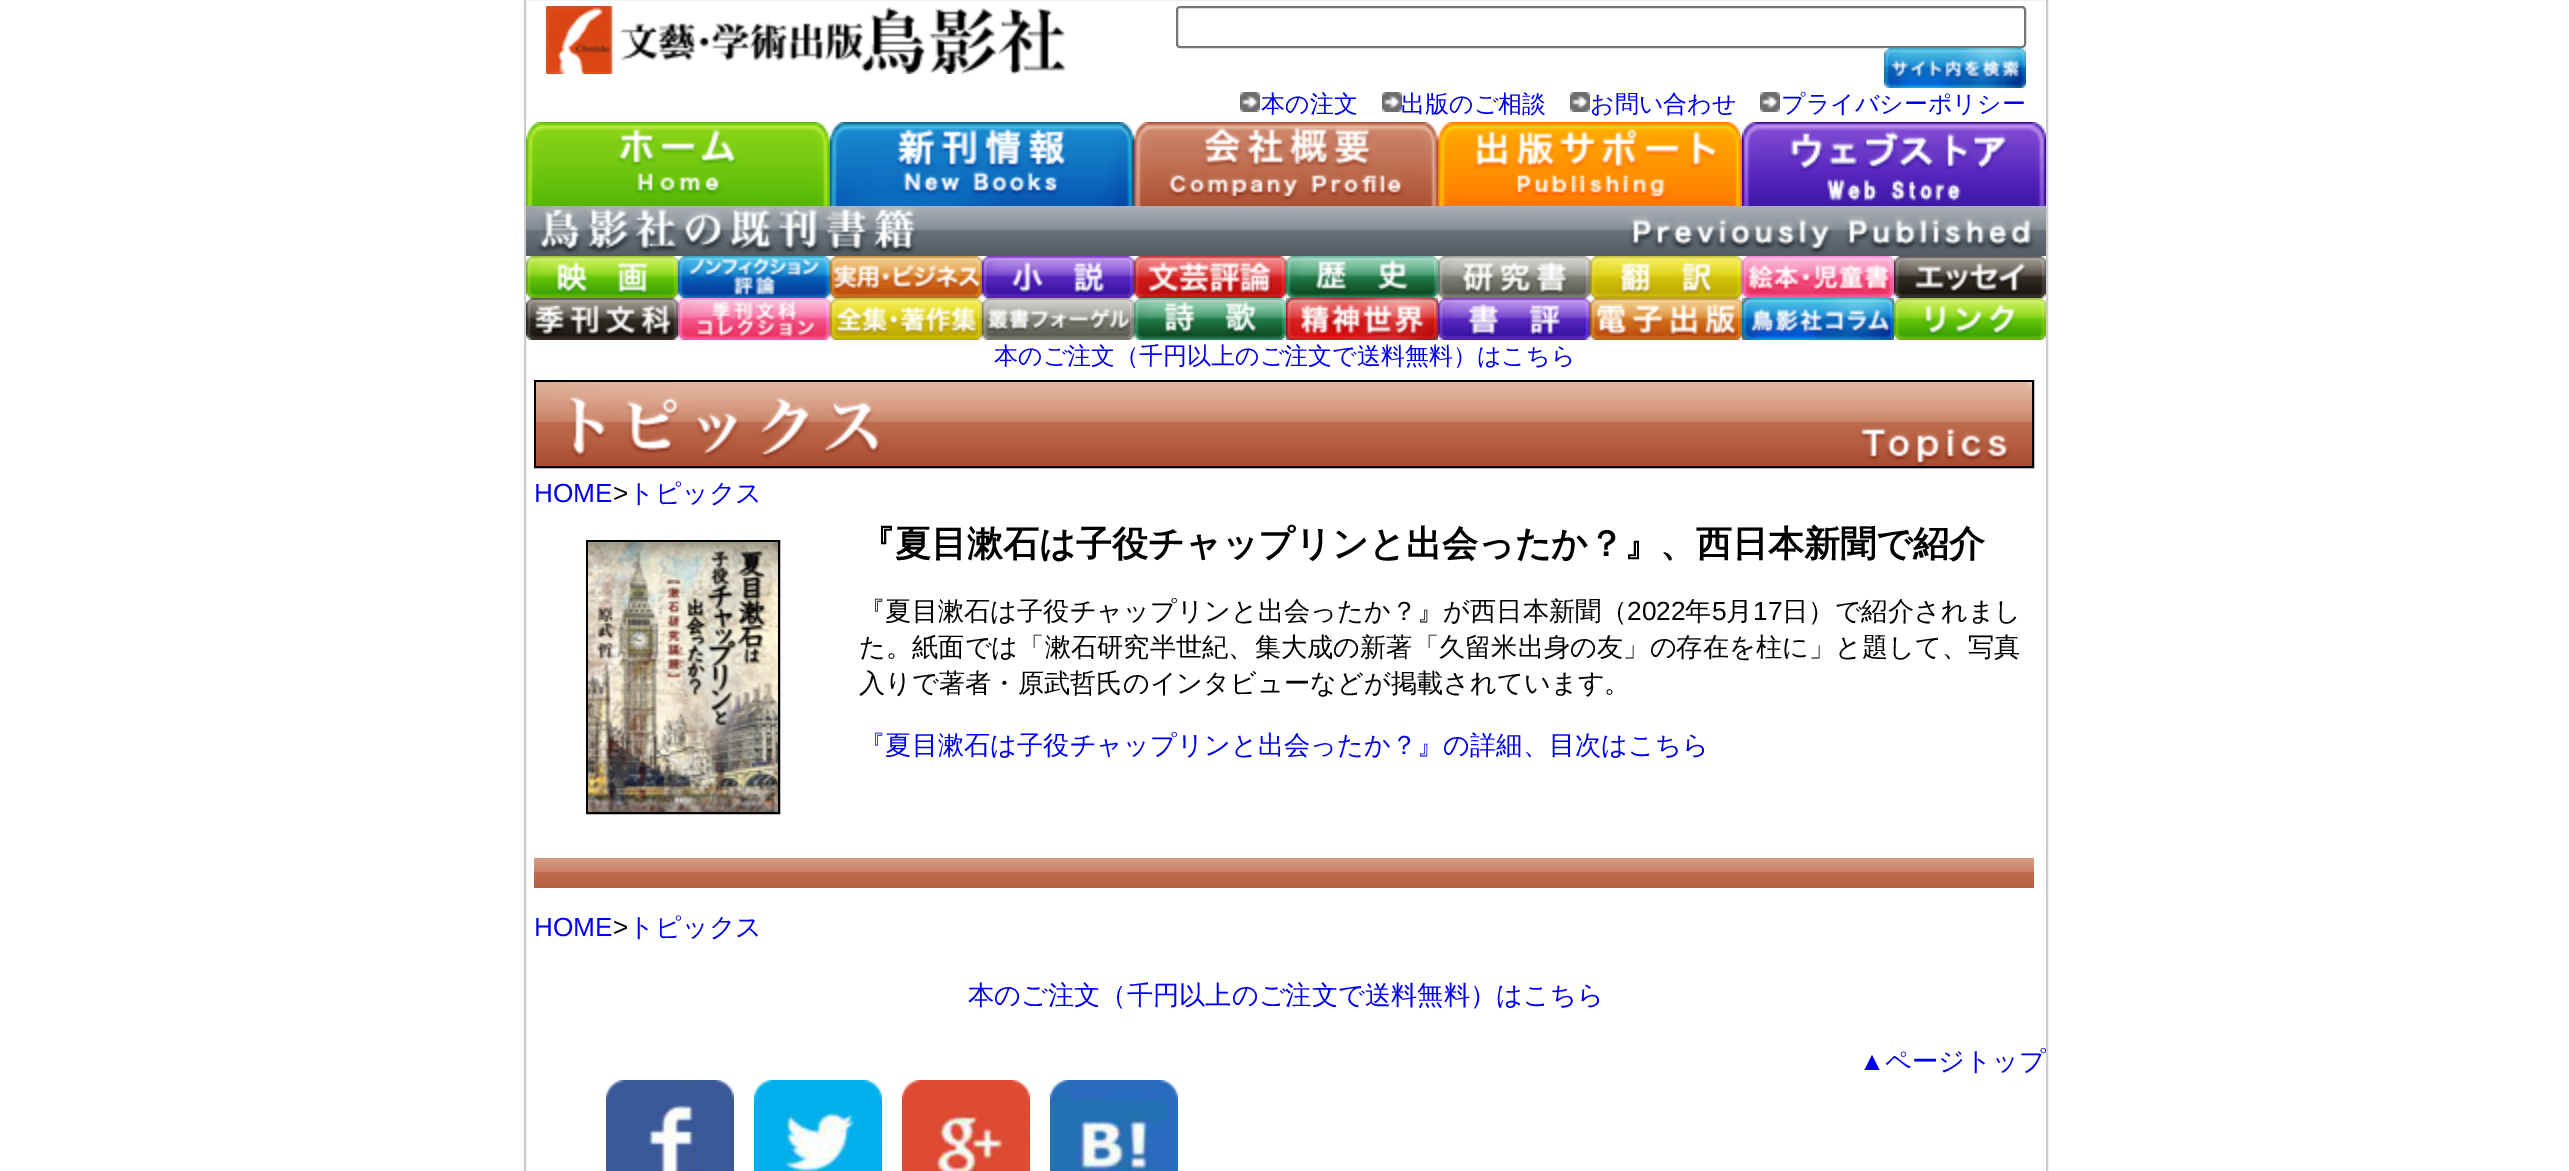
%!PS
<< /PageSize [2569 1171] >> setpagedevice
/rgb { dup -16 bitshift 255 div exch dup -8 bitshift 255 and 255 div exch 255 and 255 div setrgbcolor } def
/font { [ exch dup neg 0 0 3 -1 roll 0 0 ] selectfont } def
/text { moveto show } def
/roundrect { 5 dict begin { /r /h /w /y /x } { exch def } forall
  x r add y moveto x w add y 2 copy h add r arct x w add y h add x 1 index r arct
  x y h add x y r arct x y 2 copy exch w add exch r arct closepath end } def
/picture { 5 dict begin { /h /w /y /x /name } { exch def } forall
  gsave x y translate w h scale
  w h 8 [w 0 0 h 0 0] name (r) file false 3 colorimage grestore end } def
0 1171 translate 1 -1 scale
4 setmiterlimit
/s1 { /WenQuanYiZenHei-Medium 24 font 16#0000EE rgb } def
/s2 { /LiberationSans-Regular 26.25 font 16#0000EE rgb } def
/s3 { /LiberationSans-Regular 26.25 font 16#000000 rgb } def
/s4 { /WenQuanYiZenHei-Medium 26.25 font 16#0000EE rgb } def
/s5 { /WenQuanYiZenHei-Bold 36 font 16#000000 rgb } def
/s6 { /WenQuanYiZenHei-Medium 26.25 font 16#000000 rgb } def
16#FFFFFF rgb
0 0 2569 1171 rectfill
16#CCCCCC rgb
2 setlinewidth
525 -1 1522 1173 rectstroke
(pic1.raw) 546 6 520 68 picture
16#767676 rgb
1177 7 848 40 3 roundrect stroke
(pic2.raw) 1884 48 142 40 picture
(pic3.raw) 1240 92 20 20 picture
s1
(本の注文) 1261 112 text
(pic3.raw) 1382 92 20 20 picture
(出版のご相談) 1401 112 text
(pic3.raw) 1570 92 20 20 picture
(お問い合わせ) 1590 112 text
(pic3.raw) 1760 92 20 20 picture
(プライバシーポリシー) 1781 112 text
(pic4.raw) 526 122 304 84 picture
(pic5.raw) 830 122 304 84 picture
(pic6.raw) 1134 122 304 84 picture
(pic7.raw) 1438 122 304 84 picture
(pic8.raw) 1742 122 304 84 picture
(pic9.raw) 526 206 1520 50 picture
(pic10.raw) 526 256 152 42 picture
(pic11.raw) 678 256 152 42 picture
(pic12.raw) 830 256 152 42 picture
(pic13.raw) 982 256 152 42 picture
(pic14.raw) 1134 256 152 42 picture
(pic15.raw) 1286 256 152 42 picture
(pic16.raw) 1438 256 152 42 picture
(pic17.raw) 1590 256 152 42 picture
(pic18.raw) 1742 256 152 42 picture
(pic19.raw) 1894 256 152 42 picture
(pic20.raw) 526 298 152 42 picture
(pic21.raw) 678 298 152 42 picture
(pic22.raw) 830 298 152 42 picture
(pic23.raw) 982 298 152 42 picture
(pic24.raw) 1134 298 152 42 picture
(pic25.raw) 1286 298 152 42 picture
(pic26.raw) 1438 298 152 42 picture
(pic27.raw) 1590 298 152 42 picture
(pic28.raw) 1742 298 152 42 picture
(pic29.raw) 1894 298 152 42 picture
(本のご注文（千円以上のご注文で送料無料）はこちら) 994 364 text
16#000000 rgb
535 381 1498 86 rectstroke
(pic30.raw) 536 382 1496 84 picture
s2
(HOME) 534 502 text
s3
(>) 613 502 text
s4
(トピックス) 628 502 text
16#000000 rgb
587 541 192 272 rectstroke
(pic31.raw) 588 542 190 270 picture
s5
(『夏目漱石は子役チャップリンと出会ったか？』、西日本新聞で紹介) 859 556 text
s6
(『夏目漱石は子役チャップリンと出会ったか？』が西日本新聞（) 859 620 text
s3
(2022) 1627 620 text
s6
(年) 1685 620 text
s3
(5) 1712 620 text
s6
(月) 1726 620 text
s3
(17) 1753 620 text
s6
(日）で紹介されまし) 1782 620 text
(た。紙面では「漱石研究半世紀、集大成の新著「久留米出身の友」の存在を柱に」と題して、写真) 859 656 text
(入りで著者・原武哲氏のインタビューなどが掲載されています。) 859 692 text
s4
(『夏目漱石は子役チャップリンと出会ったか？』の詳細、目次はこちら) 859 754 text
(pic32.raw) 534 858 1500 30 picture
s2
(HOME) 534 936 text
s3
(>) 613 936 text
s4
(トピックス) 628 936 text
(本のご注文（千円以上のご注文で送料無料）はこちら) 968 1004 text
s2
(▲) 1859 1070 text
s4
(ページトップ) 1885 1070 text
(pic33.raw) 606 1080 128 91 picture
(pic34.raw) 754 1080 128 91 picture
(pic35.raw) 902 1080 128 91 picture
(pic36.raw) 1050 1080 128 91 picture
showpage
